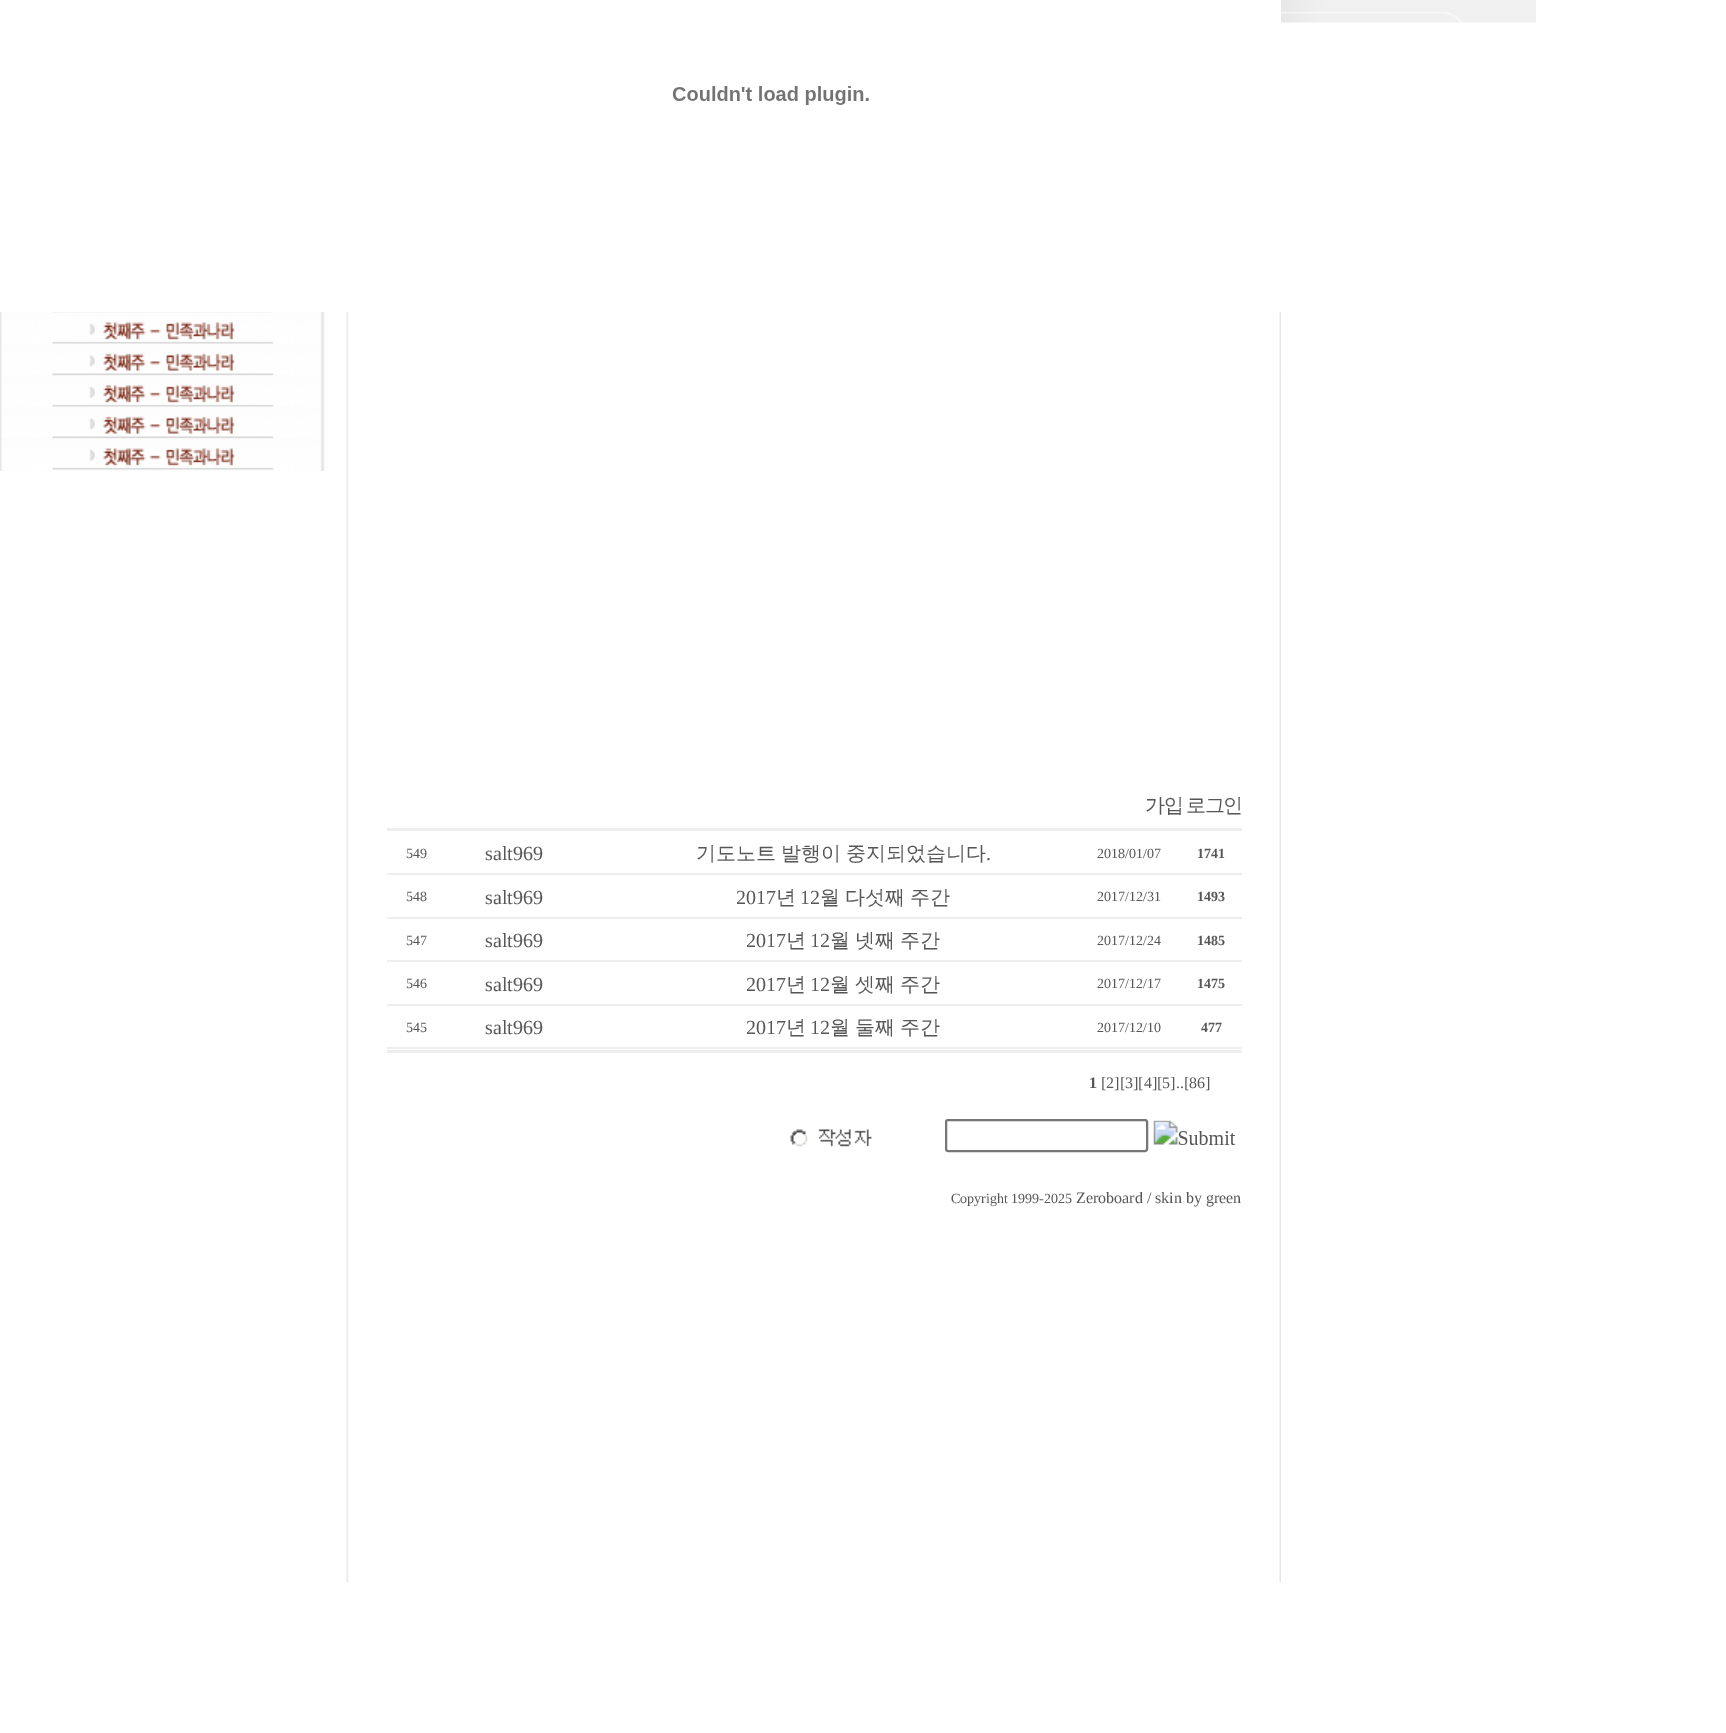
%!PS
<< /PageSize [1726 1733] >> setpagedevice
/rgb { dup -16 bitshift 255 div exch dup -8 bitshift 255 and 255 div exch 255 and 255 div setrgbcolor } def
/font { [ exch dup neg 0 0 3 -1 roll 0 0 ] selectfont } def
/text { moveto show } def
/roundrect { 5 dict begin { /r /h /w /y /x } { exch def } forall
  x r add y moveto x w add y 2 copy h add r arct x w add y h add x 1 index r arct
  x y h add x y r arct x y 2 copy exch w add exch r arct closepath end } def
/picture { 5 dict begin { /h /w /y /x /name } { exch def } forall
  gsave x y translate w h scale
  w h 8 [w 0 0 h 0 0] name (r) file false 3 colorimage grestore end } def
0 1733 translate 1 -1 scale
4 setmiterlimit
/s1 { /LiberationSerif-Regular 14 font 16#575757 rgb } def
/s2 { /LiberationSerif-Regular 20 font 16#575757 rgb } def
/s3 { /LiberationSerif-Bold 14 font 16#575757 rgb } def
/s4 { /WenQuanYiZenHei-Medium 20 font 16#575757 rgb } def
/s5 { /LiberationSerif-Bold 16 font 16#575757 rgb } def
/s6 { /LiberationSerif-Regular 16 font 16#575757 rgb } def
16#FFFFFF rgb
0 0 1726 1733 rectfill
(pic1.raw) 1281 0 255 23 picture
(pic2.raw) 672 86 197 19 picture
(pic3.raw) 0 312 325 159 picture
(pic4.raw) 346 312 935 62 picture
(pic5.raw) 346 373 935 1210 picture
/WenQuanYiZenHei-Medium 20 font
16#575757 rgb
1145 812 moveto -1.5 0 (가입) ashow
1186 812 moveto -1.5 0 (로그인) ashow
16#EEEEEE rgb
387 828 855 3 rectfill
s1
(549) 406 858 text
s2
(salt969) 485 860 text
/WenQuanYiZenHei-Medium 20 font
696 860 moveto -1 0 32 (기도노트 발행이 중지되었습니다) widthshow
s2
(.) 986 860 text
s1
(2018/01/07) 1097 858 text
s3
(1741) 1197 858 text
16#EEEEEE rgb
387 873 855 2 rectfill
s1
(548) 406 901 text
s2
(salt969) 485 904 text
(2017) 736 904 text
s4
(년) 776 904 text
s2
(12) 800 904 text
/WenQuanYiZenHei-Medium 20 font
820 904 moveto -1 0 32 (월 다섯째 주간) widthshow
s1
(2017/12/31) 1097 901 text
s3
(1493) 1197 901 text
16#EEEEEE rgb
387 917 855 2 rectfill
s1
(547) 406 945 text
s2
(salt969) 485 947 text
(2017) 746 947 text
s4
(년) 786 947 text
s2
(12) 810 947 text
/WenQuanYiZenHei-Medium 20 font
830 947 moveto -1 0 32 (월 넷째 주간) widthshow
s1
(2017/12/24) 1097 945 text
s3
(1485) 1197 945 text
16#EEEEEE rgb
387 960 855 2 rectfill
s1
(546) 406 988 text
s2
(salt969) 485 991 text
(2017) 746 991 text
s4
(년) 786 991 text
s2
(12) 810 991 text
/WenQuanYiZenHei-Medium 20 font
830 991 moveto -1 0 32 (월 셋째 주간) widthshow
s1
(2017/12/17) 1097 988 text
s3
(1475) 1197 988 text
16#EEEEEE rgb
387 1004 855 2 rectfill
s1
(545) 406 1032 text
s2
(salt969) 485 1034 text
(2017) 746 1034 text
s4
(년) 786 1034 text
s2
(12) 810 1034 text
/WenQuanYiZenHei-Medium 20 font
830 1034 moveto -1 0 32 (월 둘째 주간) widthshow
s1
(2017/12/10) 1097 1032 text
s3
(477) 1201 1032 text
16#EEEEEE rgb
387 1047 855 2 rectfill
387 1050 855 3 rectfill
s5
(1) 1089 1088 text
s6
([2][3][4][5]..[86]) 1101 1088 text
(pic6.raw) 790 1129 82 18 picture
16#767676 rgb
2 setlinewidth
946 1120 201 31 2 roundrect stroke
(pic7.raw) 1153 1120 83 25 picture
s1
(Copyright 1999-2025) 951 1203 text
s6
(Zeroboard / skin by green) 1076 1203 text
showpage
